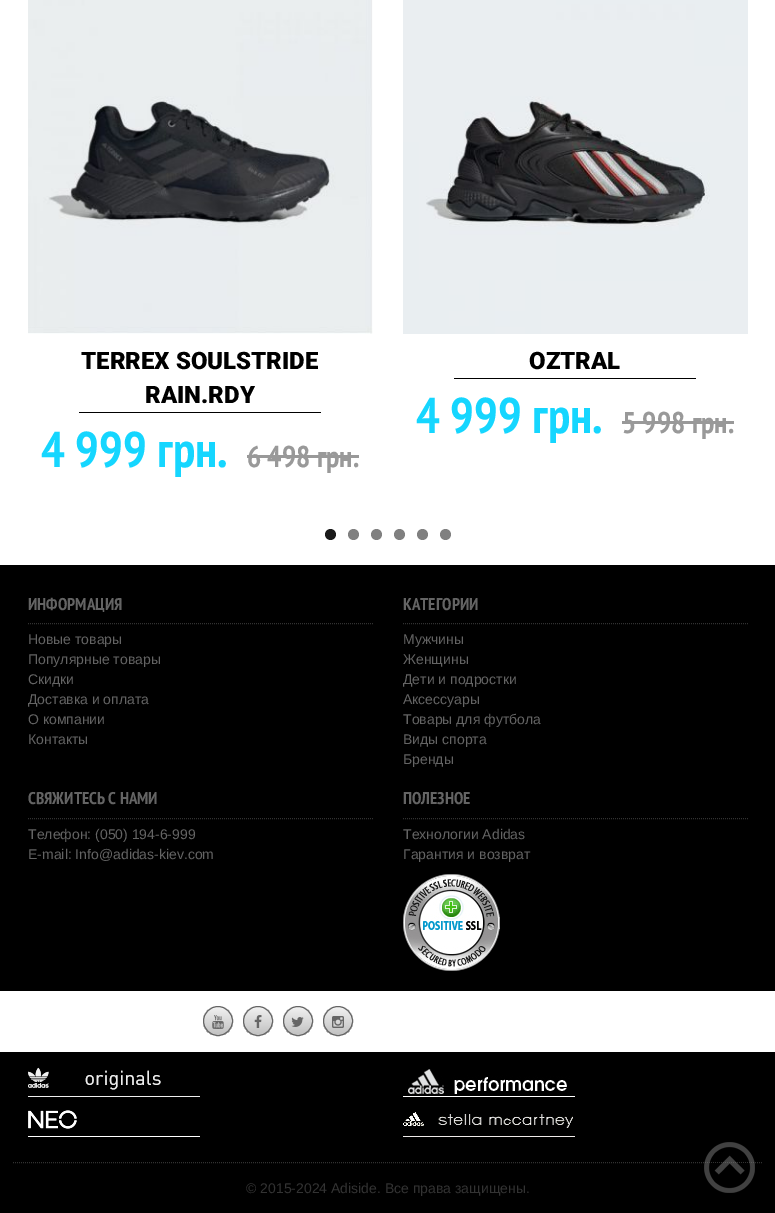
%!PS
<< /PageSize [775 1213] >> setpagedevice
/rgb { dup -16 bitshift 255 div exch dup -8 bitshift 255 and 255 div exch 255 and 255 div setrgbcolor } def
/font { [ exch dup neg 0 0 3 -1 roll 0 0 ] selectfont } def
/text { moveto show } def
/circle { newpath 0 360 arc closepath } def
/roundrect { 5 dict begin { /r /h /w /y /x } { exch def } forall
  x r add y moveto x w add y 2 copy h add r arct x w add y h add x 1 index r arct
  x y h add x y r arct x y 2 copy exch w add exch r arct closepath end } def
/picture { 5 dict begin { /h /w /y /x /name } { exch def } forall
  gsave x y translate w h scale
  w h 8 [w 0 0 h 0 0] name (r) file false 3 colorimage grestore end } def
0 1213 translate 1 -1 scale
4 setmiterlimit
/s1 { /Roboto-Black 24 font 16#000000 rgb } def
/s2 { /PTSansNarrow-Bold 50 font 16#15D6FF rgb } def
/s3 { /PTSansNarrow-Bold 30 font 16#999999 rgb } def
/s4 { /PTSansNarrow-Bold 17 font 16#646464 rgb } def
/s5 { /LiberationSans-Regular 14 font 16#646464 rgb } def
/s6 { /LiberationSans-Regular 14 font 16#333333 rgb } def
16#FFFFFF rgb
0 0 775 1213 rectfill
(pic1.raw) 28 0 345 334 picture
s1
(TERREX SOULSTRIDE) 81 369 text
(RAIN.RDY) 145 403 text
79 412 242 1 rectfill
s2
(4 999 грн.) 41 467 text
s3
(6 498 грн.) 247 467 text
247 455 112 3 rectfill
(pic2.raw) 403 0 345 334 picture
s1
(OZTRAL) 529 369 text
454 378 242 1 rectfill
s2
(4 999 грн.) 416 433 text
s3
(5 998 грн.) 622 433 text
622 421 112 3 rectfill
16#1A1A1A rgb
330.5 534.5 5.5 circle fill
16#808080 rgb
353.5 534.5 5.5 circle fill
376.5 534.5 5.5 circle fill
399.5 534.5 5.5 circle fill
422.5 534.5 5.5 circle fill
445.5 534.5 5.5 circle fill
16#000000 rgb
0 565 775 426 rectfill
16#323232 rgb
[1 1] 0 setdash
28 623.5 moveto 373 623.5 lineto stroke
s4
(ИНФОРМАЦИЯ) 28 610 text
s5
(Новые товары) 28 644 text
(Популярные товары) 28 664 text
(Скидки) 28 684 text
(Доставка и оплата) 28 704 text
(О компании) 28 724 text
(Контакты) 28 744 text
16#323232 rgb
403 623.5 moveto 748 623.5 lineto stroke
s4
(КАТЕГОРИИ) 403 610 text
s5
(Мужчины) 403 644 text
(Женщины) 403 664 text
(Дети и подростки) 403 684 text
(Аксессуары) 403 704 text
(Товары для футбола) 403 724 text
(Виды спорта) 403 744 text
(Бренды) 403 764 text
16#323232 rgb
28 818.5 moveto 373 818.5 lineto stroke
s4
(СВЯЖИТЕСЬ С НАМИ) 28 804 text
s5
(Телефон: \(050\) 194-6-999) 28 839 text
(E-mail: Info@adidas-kiev.com) 28 859 text
16#323232 rgb
403 818.5 moveto 748 818.5 lineto stroke
s4
(ПОЛЕЗНОЕ) 403 804 text
s5
(Технологии Adidas) 403 839 text
(Гарантия и возврат) 403 859 text
(pic3.raw) 403 874 97 97 picture
gsave
203 1006 30 30 15 roundrect clip newpath
gsave 203 1007 moveto 233 1007 lineto 233 1035 lineto 203 1035 lineto closepath clip newpath
<< /ShadingType 2 /ColorSpace /DeviceRGB /Coords [218 1035 218 1007] /Extend [true true] /Function << /FunctionType 2 /Domain [0 1] /C0 [0.757 0.757 0.757] /C1 [0.945 0.945 0.945] /N 1 >> >> shfill grestore
grestore
16#666666 rgb
[] 0 setdash
218 1021 14.5 circle stroke
(pic4.raw) 212 1015 12 14 picture
gsave
243 1006 30 30 15 roundrect clip newpath
gsave 243 1007 moveto 273 1007 lineto 273 1035 lineto 243 1035 lineto closepath clip newpath
<< /ShadingType 2 /ColorSpace /DeviceRGB /Coords [258 1035 258 1007] /Extend [true true] /Function << /FunctionType 2 /Domain [0 1] /C0 [0.757 0.757 0.757] /C1 [0.945 0.945 0.945] /N 1 >> >> shfill grestore
grestore
258 1021 14.5 circle stroke
(pic5.raw) 254 1015 8 13 picture
gsave
283 1006 30 30 15 roundrect clip newpath
gsave 283 1007 moveto 313 1007 lineto 313 1035 lineto 283 1035 lineto closepath clip newpath
<< /ShadingType 2 /ColorSpace /DeviceRGB /Coords [298 1035 298 1007] /Extend [true true] /Function << /FunctionType 2 /Domain [0 1] /C0 [0.757 0.757 0.757] /C1 [0.945 0.945 0.945] /N 1 >> >> shfill grestore
grestore
298 1021 14.5 circle stroke
(pic6.raw) 291 1017 13 10 picture
gsave
323 1006 30 30 15 roundrect clip newpath
gsave 323 1007 moveto 353 1007 lineto 353 1035 lineto 323 1035 lineto closepath clip newpath
<< /ShadingType 2 /ColorSpace /DeviceRGB /Coords [338 1035 338 1007] /Extend [true true] /Function << /FunctionType 2 /Domain [0 1] /C0 [0.757 0.757 0.757] /C1 [0.945 0.945 0.945] /N 1 >> >> shfill grestore
grestore
338 1021 14.5 circle stroke
(pic7.raw) 332 1016 12 12 picture
16#000000 rgb
0 1052 775 161 rectfill
16#323232 rgb
[1 1] 0 setdash
13 1162.5 moveto 763 1162.5 lineto stroke
(pic8.raw) 28 1067 172 30 picture
(pic9.raw) 403 1069 172 28 picture
(pic10.raw) 28 1110 172 27 picture
(pic11.raw) 403 1112 172 25 picture
s6
(© 2015-2024 Adiside. Все права защищены.) 246 1193 text
(pic12.raw) 704 1142 51 51 picture
showpage
